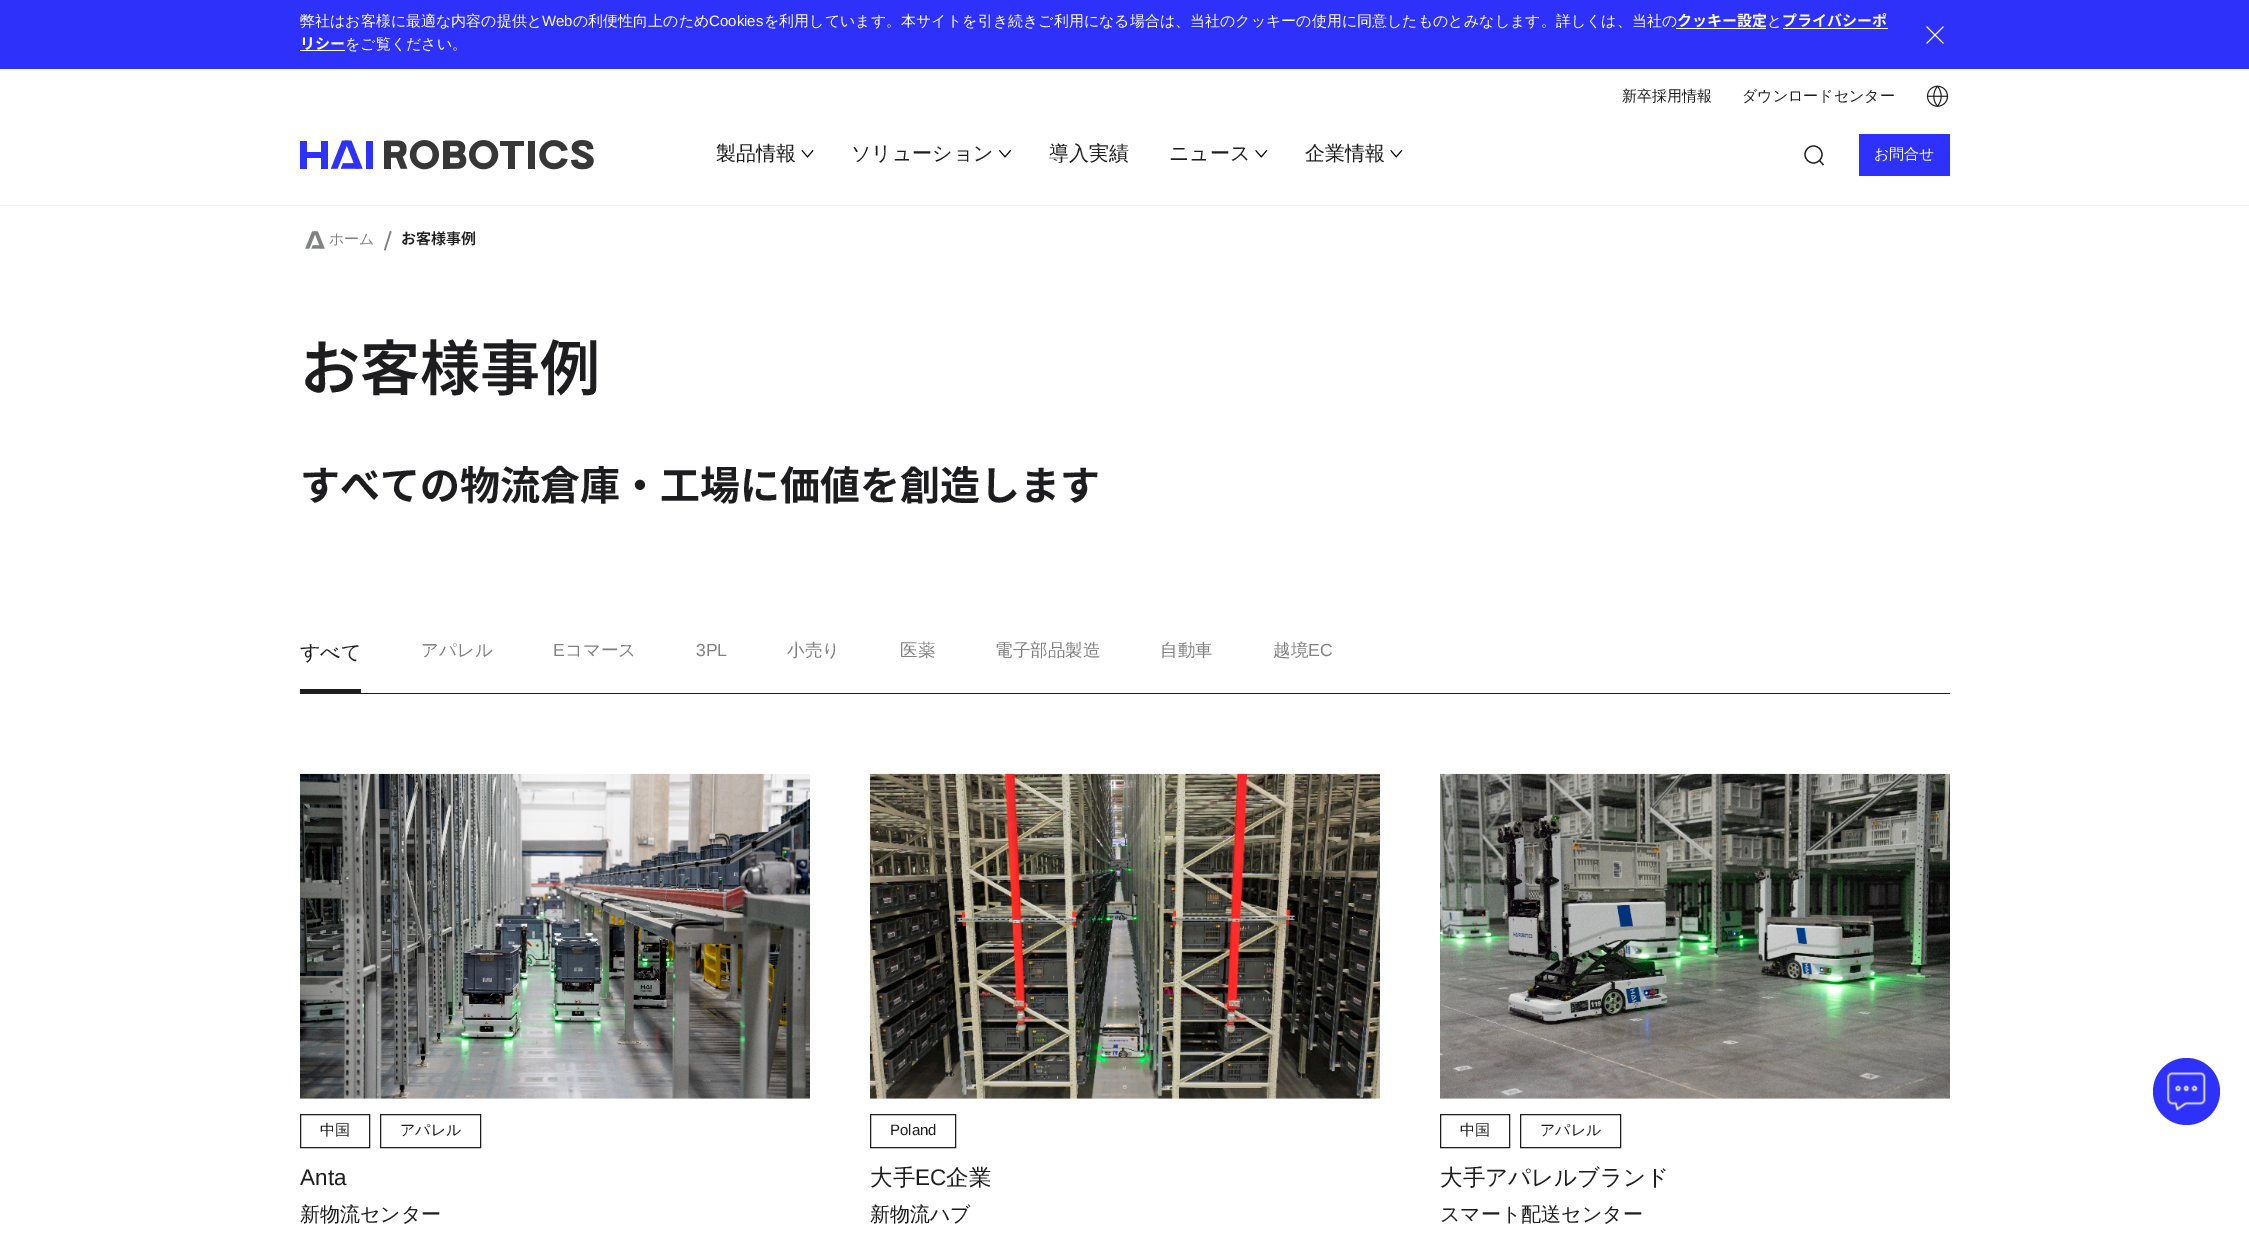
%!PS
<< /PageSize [2249 1250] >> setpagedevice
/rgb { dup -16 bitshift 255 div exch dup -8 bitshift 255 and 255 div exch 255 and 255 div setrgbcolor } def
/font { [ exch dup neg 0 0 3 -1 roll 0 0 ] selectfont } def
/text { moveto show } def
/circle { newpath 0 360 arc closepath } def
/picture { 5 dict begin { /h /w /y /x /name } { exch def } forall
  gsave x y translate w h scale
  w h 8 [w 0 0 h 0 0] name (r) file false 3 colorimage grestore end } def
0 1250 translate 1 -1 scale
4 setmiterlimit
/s1 { /WenQuanYiZenHei-Medium 15 font 16#FFFFFF rgb } def
/s2 { /LiberationSans-Regular 15 font 16#FFFFFF rgb } def
/s3 { /NotoSansJP-Bold 15 font 16#FFFFFF rgb } def
/s4 { /WenQuanYiZenHei-Medium 15 font 16#1D1D1F rgb } def
/s5 { /WenQuanYiZenHei-Medium 20 font 16#1D1D1F rgb } def
/s6 { /WenQuanYiZenHei-Medium 15 font 16#808080 rgb } def
/s7 { /NotoSansJP-SemiBold 15 font 16#1D1D1F rgb } def
/s8 { /NotoSansJP-SemiBold 60 font 16#1D1D1F rgb } def
/s9 { /NotoSansJP-Bold 40 font 16#1D1D1F rgb } def
/s10 { /WenQuanYiZenHei-Medium 17.5 font 16#808080 rgb } def
/s11 { /LiberationSans-Regular 17.5 font 16#808080 rgb } def
/s12 { /LiberationSans-Regular 22.5 font 16#1D1D1F rgb } def
/s13 { /LiberationSans-Regular 15 font 16#1D1D1F rgb } def
/s14 { /WenQuanYiZenHei-Medium 22.5 font 16#1D1D1F rgb } def
16#FFFFFF rgb
0 0 2249 1250 rectfill
16#2E31FA rgb
0 0 2249 69 rectfill
s1
(弊社はお客様に最適な内容の提供と) 300 26 text
s2
(Web) 542 26 text
s1
(の利便性向上のため) 573 26 text
s2
(Cookies) 709 26 text
s1
(を利用しています。本サイトを引き続きご利用になる場合は、当社のクッキーの使用に同意したものとみなします。詳しくは、当社の) 764 26 text
s3
(クッキー設定) 1677 26 text
1676 28 90 1 rectfill
s1
(と) 1767 26 text
s3
(プライバシーポ) 1782 26 text
1783 28 105 1 rectfill
(リシー) 300 49 text
300 50 45 1 rectfill
s1
(をご覧ください。) 345 49 text
(pic1.raw) 1926 26 18 18 picture
s4
(新卒採用情報) 1622 101 text
(ダウンロードセンター) 1742 101 text
(pic2.raw) 1926 85 23 22 picture
16#F2F2F2 rgb
0 205 2249 1 rectfill
(pic3.raw) 300 140 294 30 picture
s5
(製品情報) 716 160 text
(pic4.raw) 801 150 13 8 picture
(ソリューション) 851 160 text
(pic5.raw) 999 150 12 8 picture
(導入実績) 1049 160 text
(ニュース) 1169 160 text
(pic6.raw) 1255 150 13 8 picture
(企業情報) 1305 160 text
(pic6.raw) 1390 150 13 8 picture
1.2 setlinewidth
1813.5 154.5 8.5 circle stroke
1823.5 165 moveto 1819.5 160.5 lineto stroke
16#2E31FA rgb
1859 134 91 42 rectfill
s1
(お問合せ) 1874 159 text
(pic7.raw) 305 231 20 18 picture
s6
(ホーム) 329 244 text
390 231 moveto 391.5 231.5 lineto 385.5 250.5 lineto 384 250 lineto closepath fill
s7
(お客様事例) 401 244 text
s8
(お客様事例) 300 390 text
s9
(すべての物流倉庫・工場に価値を創造します) 300 500 text
300 693 1650 1 rectfill
300 689 61 4 rectfill
s5
(すべて) 300 659 text
s10
(アパレル) 421 656 text
s11
(E) 553 656 text
s10
(コマース) 565 656 text
s11
(3PL) 696 656 text
s10
(小売り) 787 656 text
(医薬) 900 656 text
(電子部品製造) 995 656 text
(自動車) 1160 656 text
(越境) 1273 656 text
s11
(EC) 1308 656 text
(pic8.raw) 300 773 510 326 picture
16#1D1D1F rgb
1 setlinewidth
300.5 1114.5 69 33 rectstroke
s4
(中国) 320 1135 text
380.5 1114.5 100 33 rectstroke
(アパレル) 400 1135 text
s12
(Anta) 300 1185 text
s5
(新物流センター) 300 1221 text
(pic9.raw) 870 773 510 326 picture
870.5 1114.5 85 33 rectstroke
s13
(Poland) 890 1135 text
s14
(大手) 870 1185 text
s12
(EC) 915 1185 text
s14
(企業) 946 1185 text
s5
(新物流ハブ) 870 1221 text
(pic10.raw) 1440 773 510 326 picture
1440.5 1114.5 69 33 rectstroke
s4
(中国) 1460 1135 text
1520.5 1114.5 100 33 rectstroke
(アパレル) 1540 1135 text
s14
(大手アパレルブランド) 1440 1185 text
s5
(スマート配送センター) 1440 1221 text
16#2E31FA rgb
2186.5 1091.5 33.5 circle fill
(pic11.raw) 2166 1072 40 39 picture
showpage
